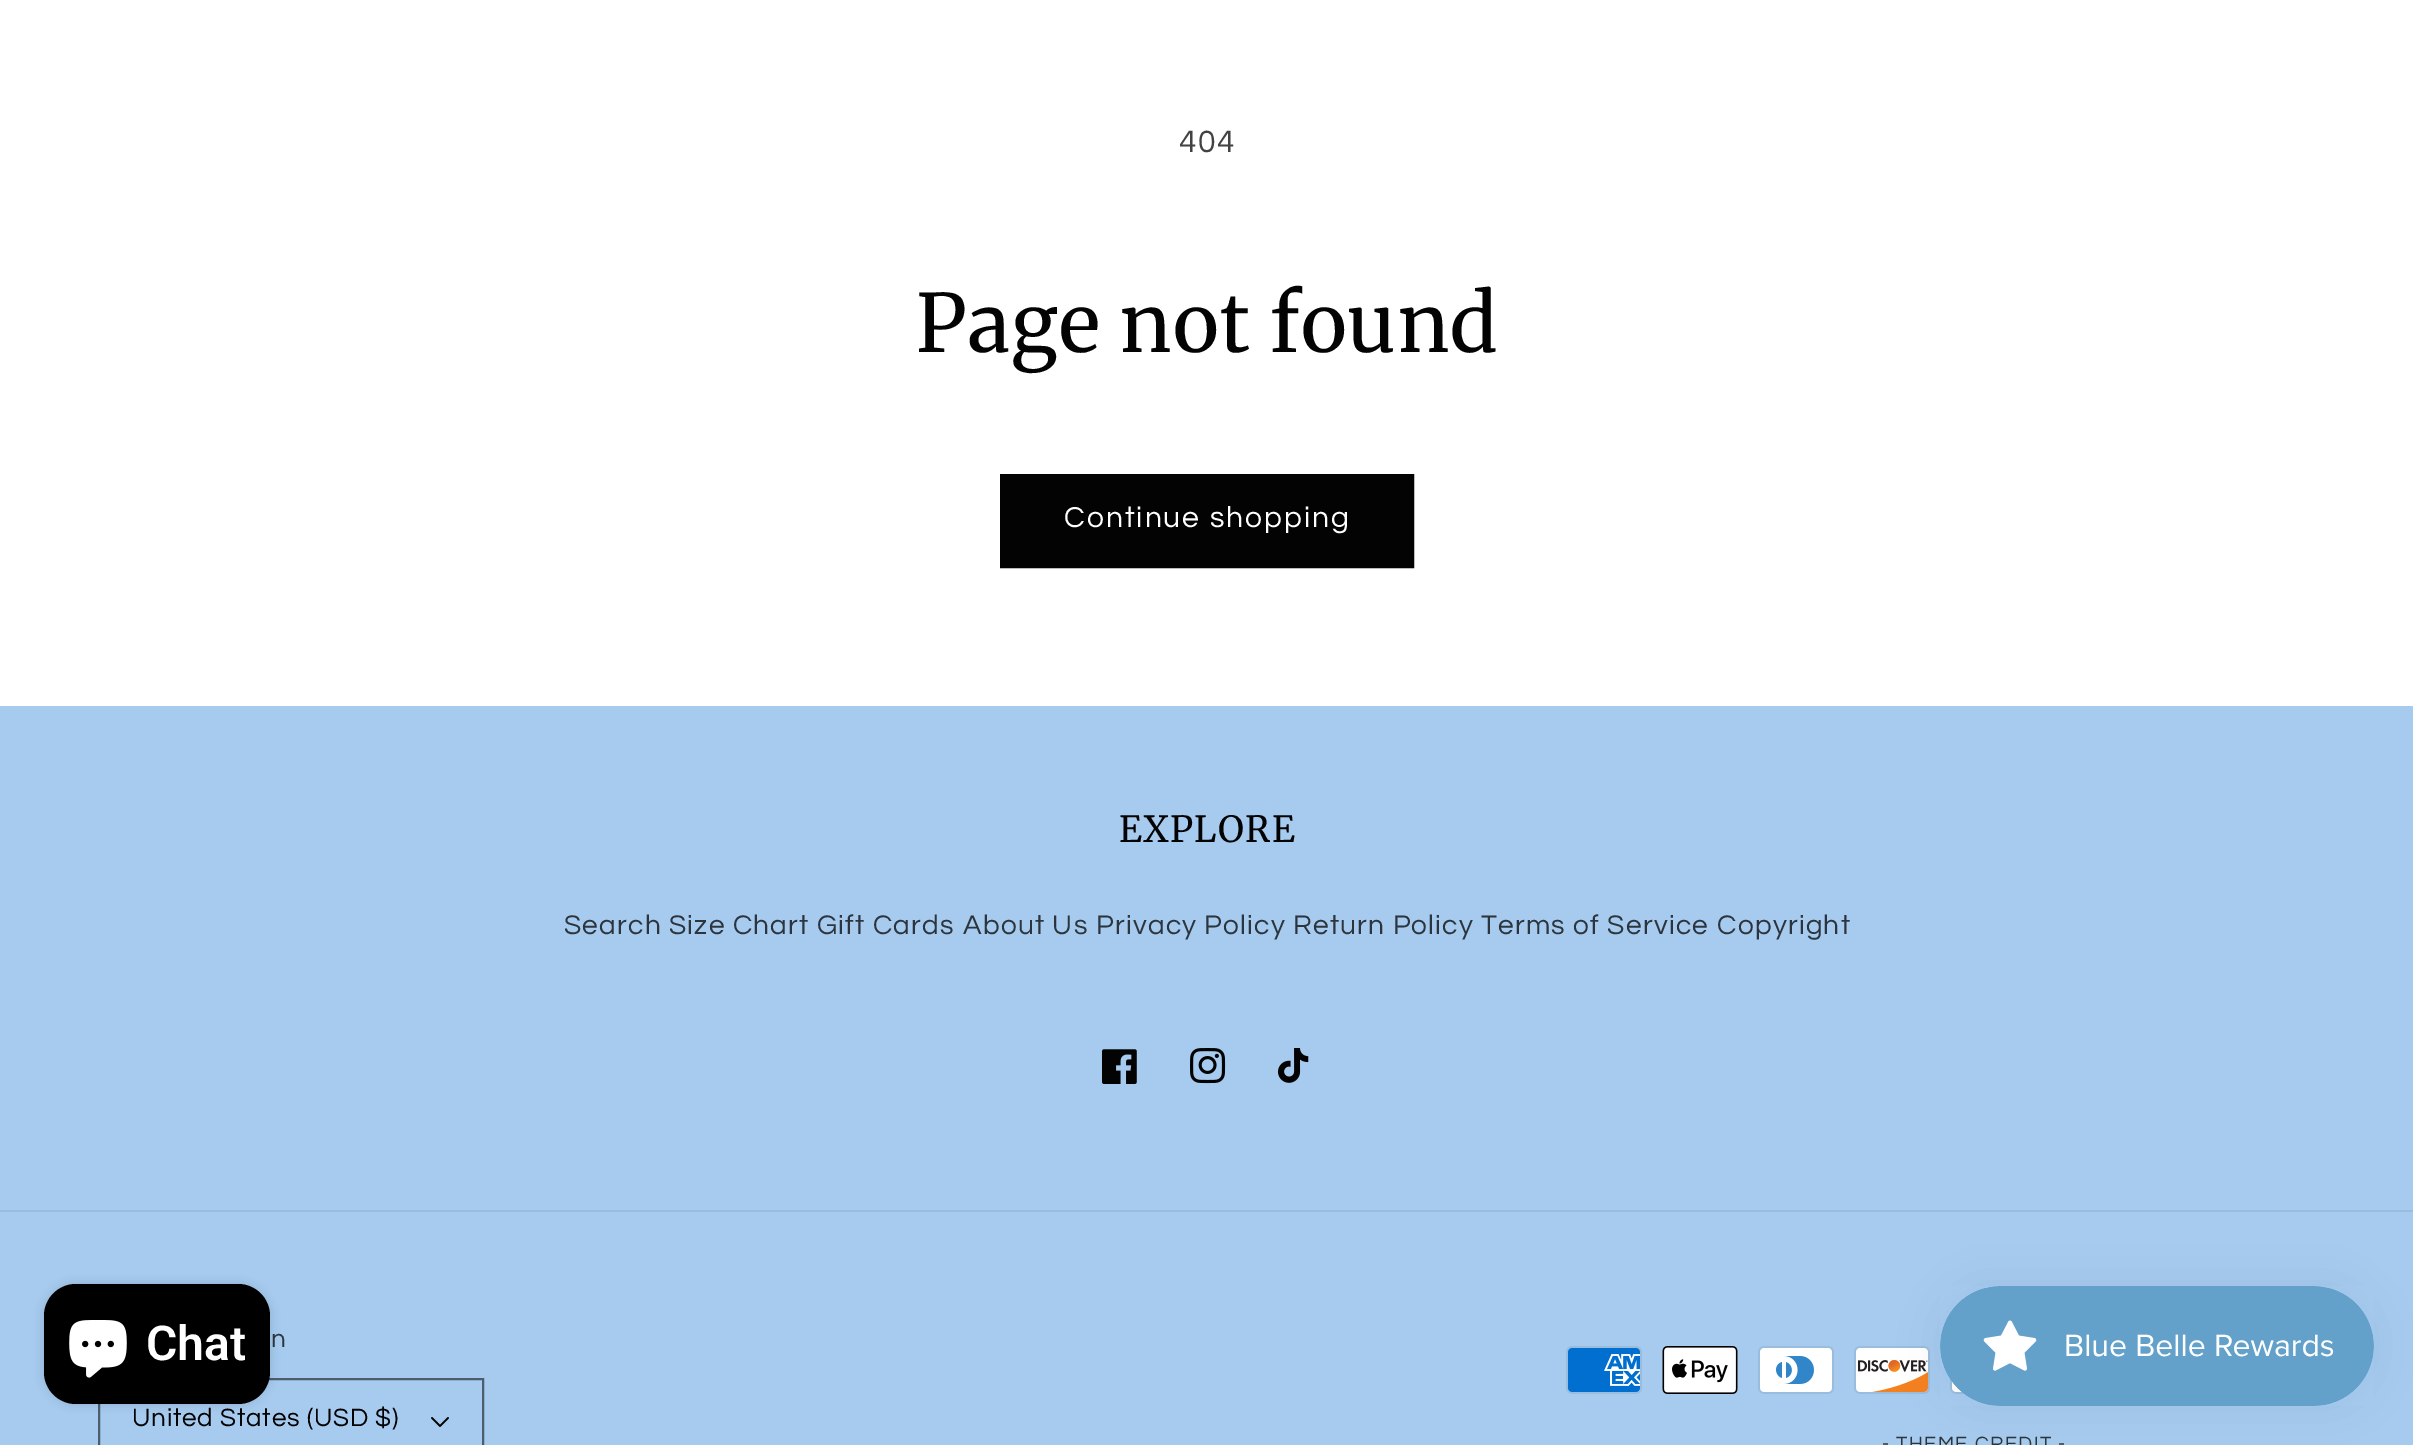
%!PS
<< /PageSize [2413 1445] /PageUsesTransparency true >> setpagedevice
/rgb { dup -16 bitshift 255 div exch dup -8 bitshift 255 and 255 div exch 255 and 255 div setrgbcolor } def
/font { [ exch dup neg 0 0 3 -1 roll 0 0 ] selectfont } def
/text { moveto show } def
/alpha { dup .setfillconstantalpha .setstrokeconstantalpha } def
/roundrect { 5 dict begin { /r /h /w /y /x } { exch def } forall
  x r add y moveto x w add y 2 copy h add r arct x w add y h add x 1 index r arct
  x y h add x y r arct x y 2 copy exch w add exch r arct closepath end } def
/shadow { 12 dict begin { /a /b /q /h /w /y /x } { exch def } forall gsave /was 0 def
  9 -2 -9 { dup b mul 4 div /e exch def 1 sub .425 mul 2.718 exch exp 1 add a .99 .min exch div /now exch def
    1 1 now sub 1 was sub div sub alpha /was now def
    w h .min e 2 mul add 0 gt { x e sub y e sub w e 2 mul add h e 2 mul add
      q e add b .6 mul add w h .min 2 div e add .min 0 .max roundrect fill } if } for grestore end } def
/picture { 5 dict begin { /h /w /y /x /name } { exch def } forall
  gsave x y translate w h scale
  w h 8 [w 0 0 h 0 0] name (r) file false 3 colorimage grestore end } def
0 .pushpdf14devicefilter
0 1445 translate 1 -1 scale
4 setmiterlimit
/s1 { /Roboto-SemiBold 48 font 16#FFFFFF rgb } def
16#FFFFFF rgb
0 0 2413 1445 rectfill
/Questrial-Regular 32 font
16#424242 rgb
1179 152 moveto 1.25 0 (404) ashow
/Merriweather-Regular 80 font
16#030303 rgb
916 352 moveto 1.25 0 (Page not found) ashow
2 setlinewidth
1001 475 412 92 rectstroke
1002 476 410 90 rectfill
/Questrial-Regular 30 font
16#FFFFFF rgb
1064 527 moveto 2 0 (Continue shopping) ashow
16#A6CBEF rgb
0 706 2413 739 rectfill
/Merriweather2-Regular 36 font
16#030303 rgb
1119 842 moveto 1.25 0 (EXPLORE) ashow
/Questrial-Regular 28 font
16#2C353E rgb
564 934 moveto 1.25 0 (Search) ashow
669 934 moveto 1.25 0 (Size Chart) ashow
817 934 moveto 1.25 0 (Gift Cards) ashow
963 934 moveto 1.25 0 (About Us) ashow
1096 934 moveto 1.25 0 (Privacy Policy) ashow
1293 934 moveto 1.25 0 (Return Policy) ashow
1481 934 moveto 1.25 0 (Terms of Service) ashow
1717 934 moveto 1.25 0 (Copyright) ashow
(pic1.raw) 1102 1049 35 35 picture
(pic2.raw) 1190 1048 36 36 picture
(pic3.raw) 1278 1048 31 35 picture
16#99BBDC rgb
0 1210 2413 2 rectfill
/Questrial-Regular 26 font
16#2C353E rgb
271 1347 moveto 0.8 0 (n) ashow
16#4C5D6D rgb
99 1379 384 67 rectstroke
16#030303 rgb
132 1426 moveto 0.8 0 (United States \(USD $\)) ashow
(pic4.raw) 431 1417 18 10 picture
(pic5.raw) 1566 1346 76 48 picture
(pic6.raw) 1662 1346 76 48 picture
(pic7.raw) 1758 1346 76 48 picture
(pic8.raw) 1854 1346 76 48 picture
(pic9.raw) 1950 1379 14 15 picture
/Questrial-Regular 20 font
16#2C353E rgb
1882 1450 moveto 1.4 0 (- THEME CREDIT -) ashow
16#000000 rgb
1940 1286 434 120 60 25 0.05 shadow
(pic10.raw) 1940 1286 434 120 picture
44 1284 226 120 32 5 0.15 shadow
44 1284 226 120 32 roundrect fill
(pic11.raw) 69 1320 58 58 picture
s1
(Chat) 146 1360 text
.poppdf14devicefilter showpage
